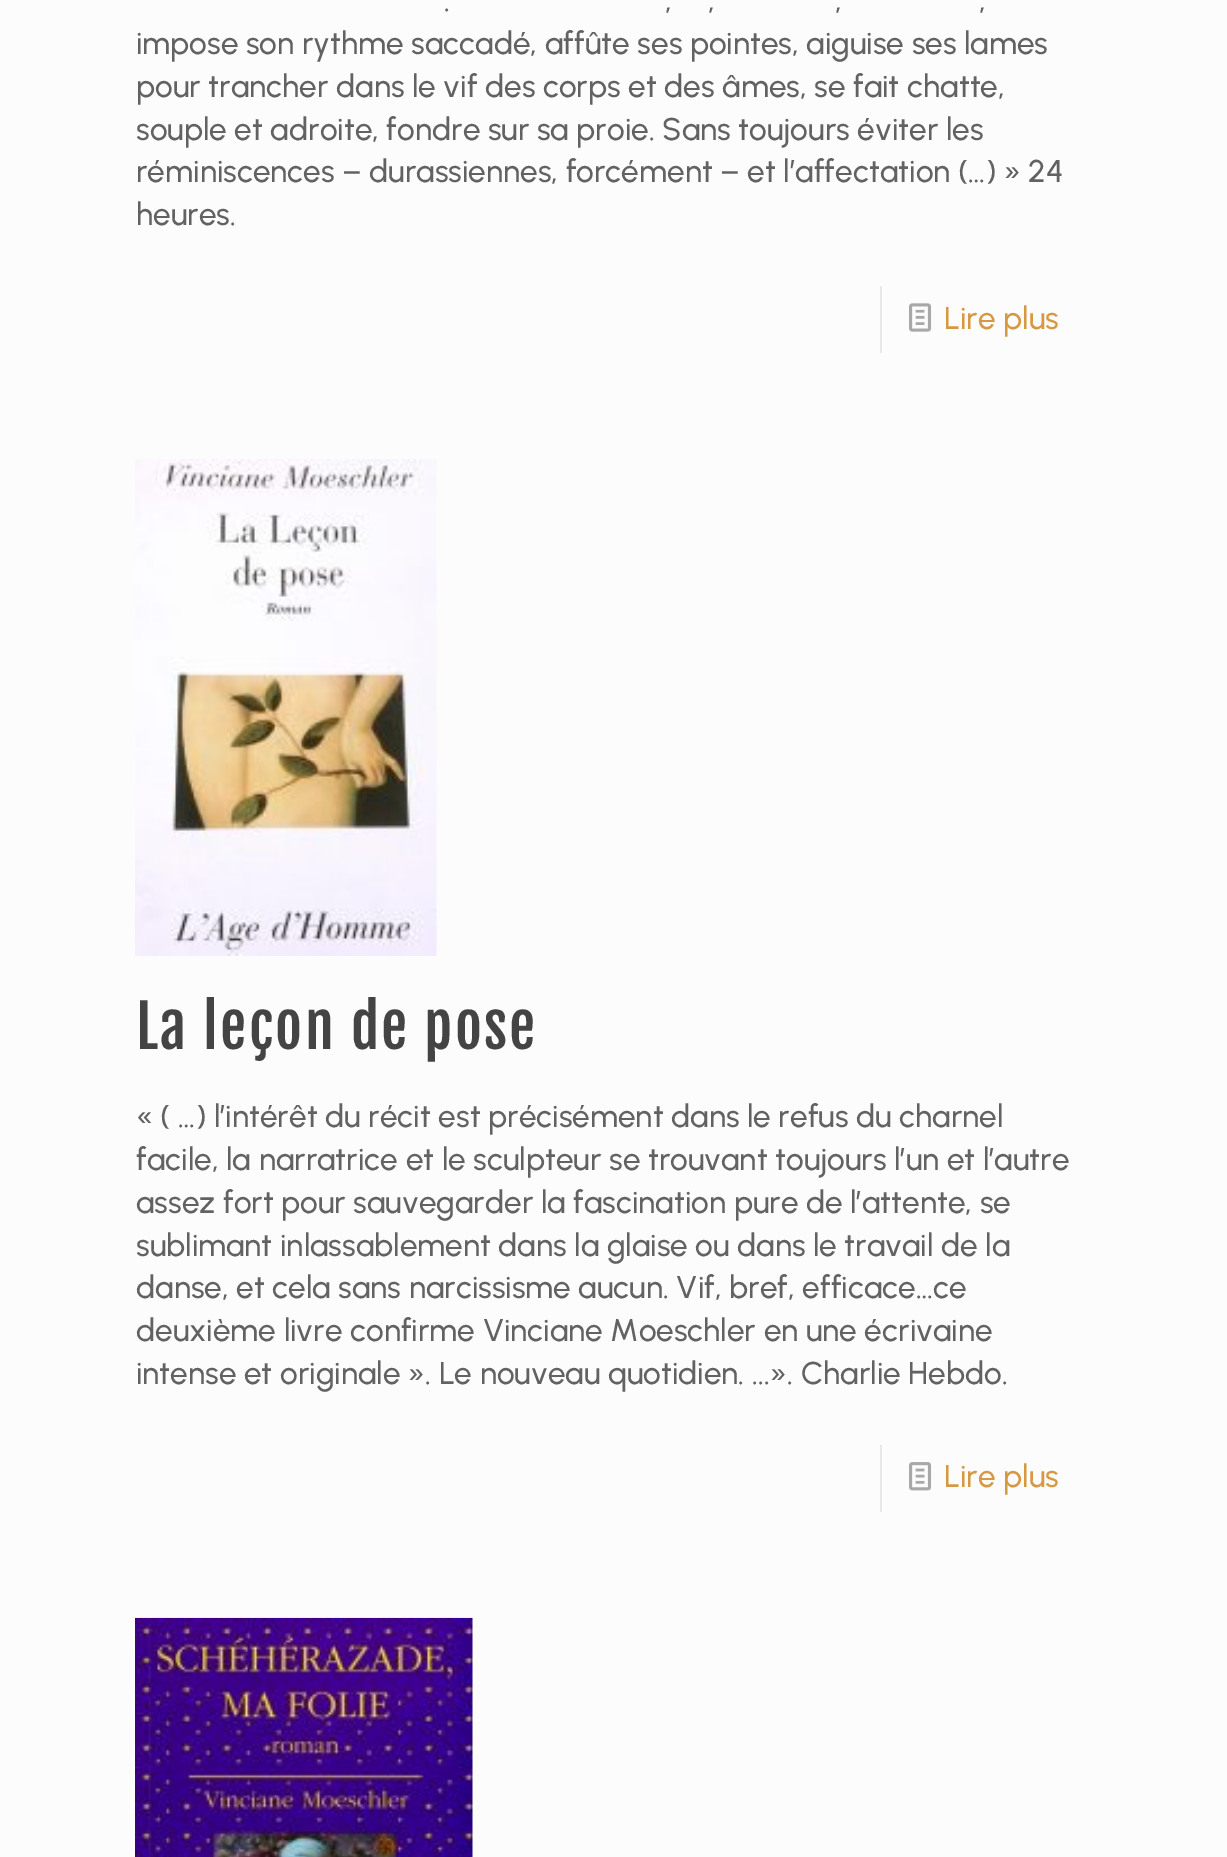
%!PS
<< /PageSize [1227 1857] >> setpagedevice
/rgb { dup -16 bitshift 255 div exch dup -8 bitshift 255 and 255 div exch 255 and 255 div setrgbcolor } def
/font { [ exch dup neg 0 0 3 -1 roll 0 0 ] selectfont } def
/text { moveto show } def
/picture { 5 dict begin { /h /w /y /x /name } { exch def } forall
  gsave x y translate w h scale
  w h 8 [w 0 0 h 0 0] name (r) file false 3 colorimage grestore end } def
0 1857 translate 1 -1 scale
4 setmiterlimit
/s1 { /Urbanist-Medium 31.5 font 16#626262 rgb } def
/s2 { /Urbanist-Medium 31.5 font 16#D69942 rgb } def
16#FCFCFC rgb
0 0 1227 1857 rectfill
s1
(.) 444 11 text
(,) 665 11 text
(,) 708 11 text
(,) 835 11 text
(,) 979 11 text
(impose son rythme saccadé, affûte ses pointes, aiguise ses lames) 136 54 text
(pour trancher dans le vif des corps et des âmes, se fait chatte,) 136 97 text
(souple et adroite, fondre sur sa proie. Sans toujours éviter les) 136 140 text
(réminiscences – durassiennes, forcément – et l’affectation \(…\) » 24) 136 182 text
(heures.) 136 225 text
16#E8E8E8 rgb
880 286 2 67 rectfill
(pic1.raw) 909 303 23 29 picture
s2
(Lire plus) 944 329 text
(pic2.raw) 135 459 302 497 picture
/FjallaOne-Regular 58.5 font
16#444444 rgb
136 1049 moveto 2.25 0 (La leçon de pose) ashow
s1
(« \( …\) l’intérêt du récit est précisément dans le refus du charnel) 136 1127 text
(facile, la narratrice et le sculpteur se trouvant toujours l’un et l’autre) 136 1170 text
(assez fort pour sauvegarder la fascination pure de l’attente, se) 136 1213 text
(sublimant inlassablement dans la glaise ou dans le travail de la) 136 1256 text
(danse, et cela sans narcissisme aucun. Vif, bref, efficace…ce) 136 1298 text
(deuxième livre confirme Vinciane Moeschler en une écrivaine) 136 1341 text
(intense et originale ». Le nouveau quotidien. ...». Charlie Hebdo.) 136 1384 text
16#E8E8E8 rgb
880 1445 2 67 rectfill
(pic3.raw) 909 1462 23 29 picture
s2
(Lire plus) 944 1487 text
(pic4.raw) 135 1617 338 240 picture
showpage
